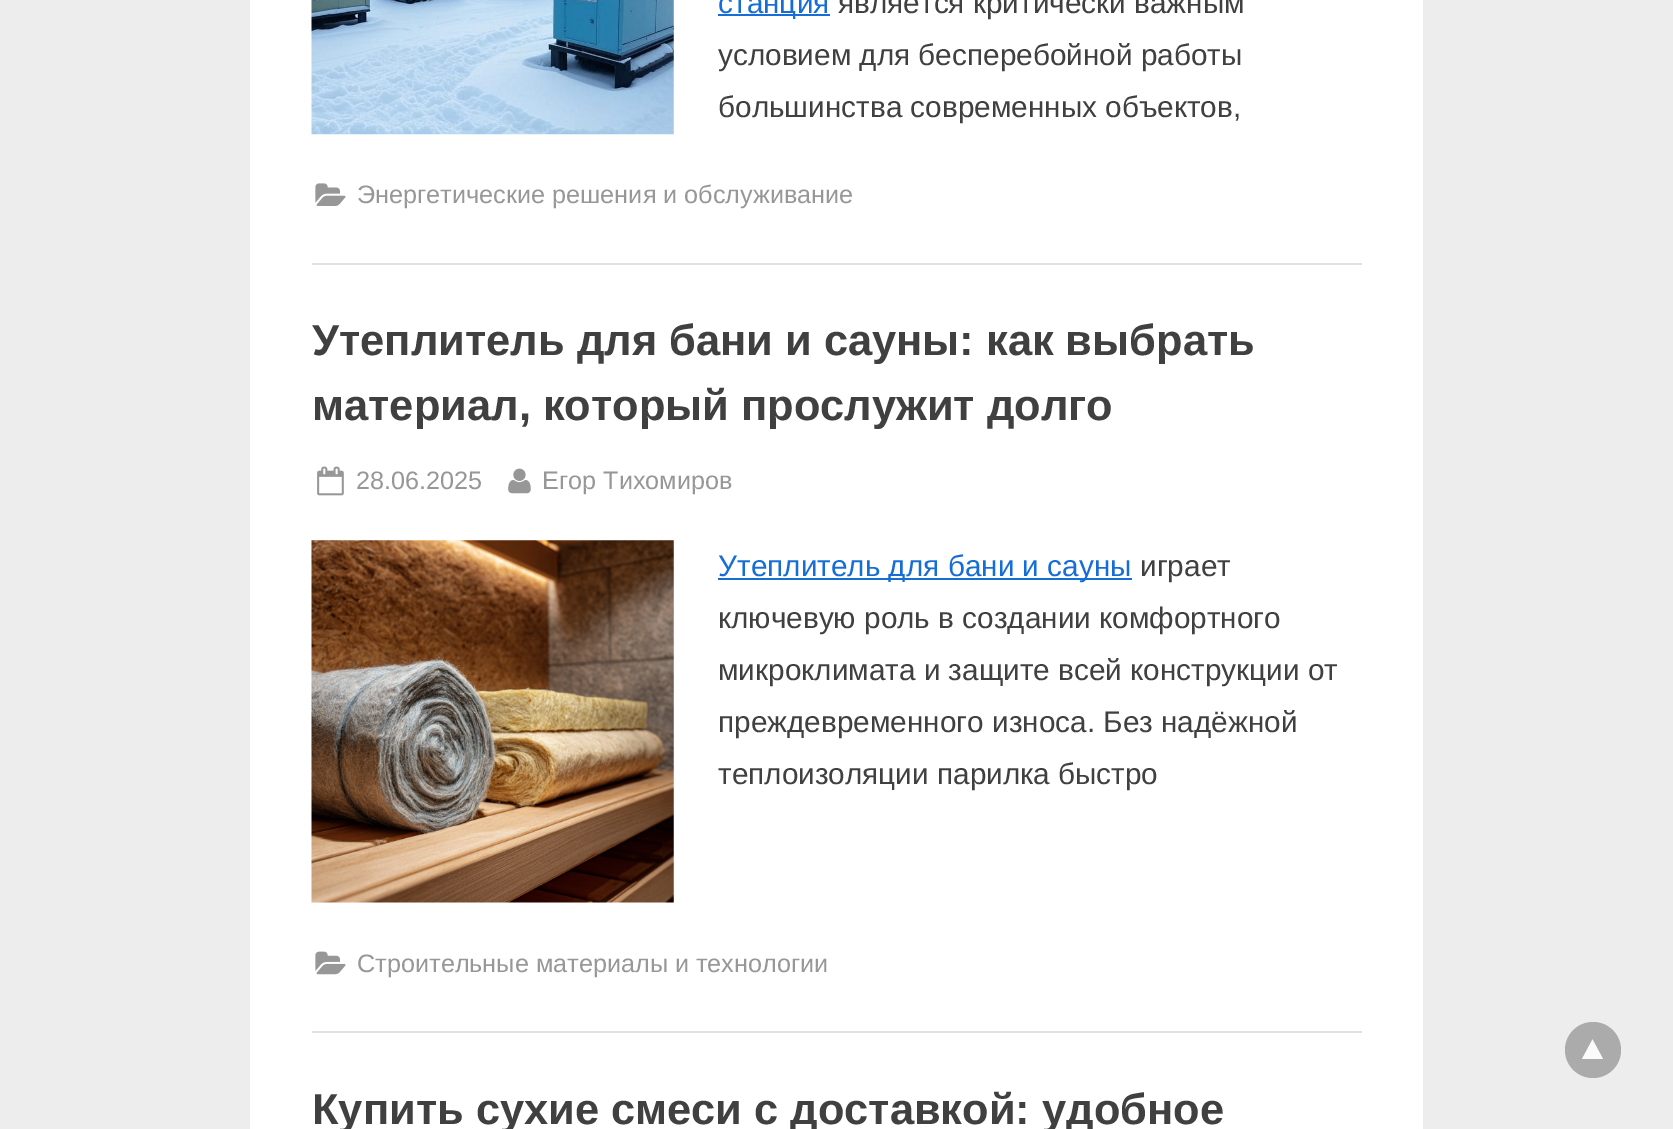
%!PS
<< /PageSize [1673 1129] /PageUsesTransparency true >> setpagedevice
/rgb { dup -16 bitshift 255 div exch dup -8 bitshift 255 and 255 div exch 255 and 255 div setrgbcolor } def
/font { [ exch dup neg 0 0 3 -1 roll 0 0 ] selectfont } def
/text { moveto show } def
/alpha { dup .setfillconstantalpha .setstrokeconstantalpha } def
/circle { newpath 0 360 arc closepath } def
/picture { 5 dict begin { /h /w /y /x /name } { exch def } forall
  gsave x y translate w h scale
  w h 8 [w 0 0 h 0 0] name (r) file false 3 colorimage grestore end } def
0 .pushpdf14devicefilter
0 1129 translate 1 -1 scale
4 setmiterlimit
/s1 { /LiberationSans-Regular 29.75 font 16#166DD6 rgb } def
/s2 { /LiberationSans-Regular 29.75 font 16#404040 rgb } def
/s3 { /LiberationSans-Regular 25.25 font 16#979797 rgb } def
/s4 { /LiberationSans-Bold 43.4 font 16#404040 rgb } def
16#EDEDED rgb
0 0 1673 1129 rectfill
16#FFFFFF rgb
250 0 1173 1129 rectfill
16#E1E1E1 rgb
312 263 1050 2 rectfill
(pic1.raw) 311 0 363 135 picture
16#166DD6 rgb
718 14 112 2 rectfill
s1
(станция) 718 13 text
s2
(является критически важным) 838 13 text
(условием для бесперебойной работы) 718 65 text
(большинства современных объектов,) 718 117 text
(pic2.raw) 315 183 31 23 picture
s3
(Энергетические решения и обслуживание) 357 203 text
16#E1E1E1 rgb
312 1031 1050 2 rectfill
s4
(Утеплитель для бани и сауны: как выбрать) 312 355 text
(материал, который прослужит долго) 312 420 text
(pic3.raw) 317 466 27 30 picture
s3
(28.06.2025) 356 489 text
(pic4.raw) 508 468 23 26 picture
(Егор Тихомиров) 542 489 text
(pic5.raw) 311 540 363 363 picture
16#166DD6 rgb
718 578 414 2 rectfill
s1
(Утеплитель для бани и сауны) 718 576 text
s2
(играет) 1140 576 text
(ключевую роль в создании комфортного) 718 628 text
(микроклимата и защите всей конструкции от) 718 680 text
(преждевременного износа. Без надёжной) 718 732 text
(теплоизоляции парилка быстро) 718 784 text
(pic6.raw) 315 951 31 24 picture
s3
(Строительные материалы и технологии) 357 972 text
s4
(Купить сухие смеси с доставкой: удобное) 312 1124 text
0.35 alpha
16#2F2F2F rgb
1593 1050 28 circle fill
1 alpha
16#FBFBFB rgb
1603 1059 moveto 1582 1059 lineto 1592.5 1039.5 lineto closepath fill
.poppdf14devicefilter showpage
